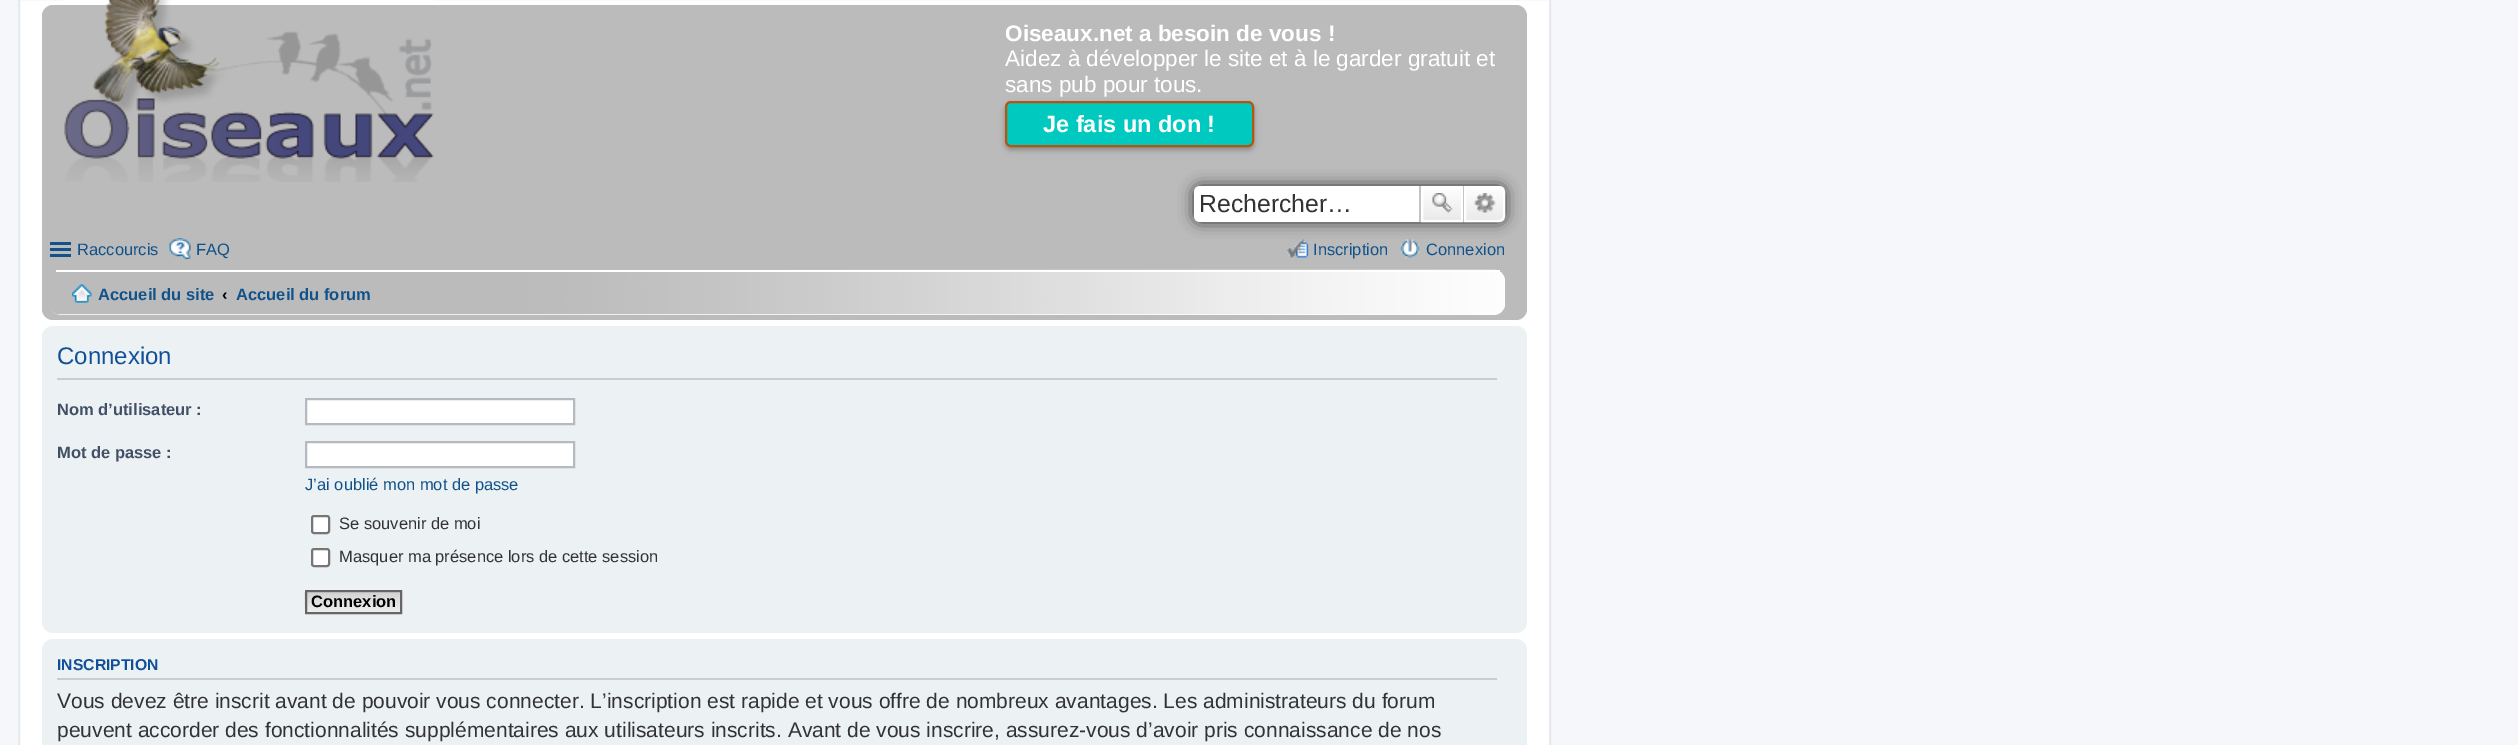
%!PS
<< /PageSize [2518 745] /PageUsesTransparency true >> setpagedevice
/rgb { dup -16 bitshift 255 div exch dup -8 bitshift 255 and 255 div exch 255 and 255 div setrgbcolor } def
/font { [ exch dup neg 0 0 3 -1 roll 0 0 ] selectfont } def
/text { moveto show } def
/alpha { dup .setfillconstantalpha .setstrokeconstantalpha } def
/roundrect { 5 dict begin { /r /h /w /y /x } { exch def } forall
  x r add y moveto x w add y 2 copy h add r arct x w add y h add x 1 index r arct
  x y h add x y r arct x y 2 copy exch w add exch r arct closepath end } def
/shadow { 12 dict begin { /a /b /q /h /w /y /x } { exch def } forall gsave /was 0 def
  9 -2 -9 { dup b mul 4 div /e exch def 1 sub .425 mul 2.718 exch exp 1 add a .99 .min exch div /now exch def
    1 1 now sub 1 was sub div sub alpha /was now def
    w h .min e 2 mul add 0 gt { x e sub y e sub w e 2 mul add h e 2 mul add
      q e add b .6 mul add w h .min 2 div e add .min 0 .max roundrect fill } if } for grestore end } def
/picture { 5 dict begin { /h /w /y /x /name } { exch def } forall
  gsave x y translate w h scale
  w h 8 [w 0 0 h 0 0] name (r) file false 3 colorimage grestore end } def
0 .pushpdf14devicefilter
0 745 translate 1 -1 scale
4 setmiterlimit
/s1 { /LiberationSans-Bold 22.5 font 16#FFFFFF rgb } def
/s2 { /LiberationSans-Regular 22.5 font 16#FFFFFF rgb } def
/s3 { /LiberationSans-Bold 23.5 font 16#FFFFFF rgb } def
/s4 { /LiberationSans-Regular 24.75 font 16#333333 rgb } def
/s5 { /LiberationSans-Regular 16.5 font 16#105289 rgb } def
/s6 { /LiberationSans-Bold 16.5 font 16#105289 rgb } def
/s7 { /LiberationSans-Bold 16.5 font 16#000000 rgb } def
/s8 { /LiberationSans-Regular 24 font 16#115098 rgb } def
/s9 { /LiberationSans-Bold 16.5 font 16#425067 rgb } def
/s10 { /LiberationSans-Regular 16.5 font 16#333333 rgb } def
/s11 { /LiberationSans-Bold 15.75 font 16#115098 rgb } def
/s12 { /LiberationSans-Regular 21 font 16#333333 rgb } def
16#F5F7FA rgb
0 0 2518 745 rectfill
16#FFFFFF rgb
19 -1 moveto 1550 -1 lineto 1550 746 lineto 19 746 lineto closepath gsave fill grestore
16#E6E9ED rgb
2 setlinewidth
stroke
16#BBBBBB rgb
42 5 1485 315 11 roundrect fill
(pic1.raw) 64 0 370 182 picture
s1
(Oiseaux.net a besoin de vous !) 1005 41 text
s2
(Aidez à développer le site et à le garder gratuit et) 1005 66 text
(sans pub pour tous.) 1005 92 text
16#000000 rgb
1005 104 249 46 6 3 0.3 shadow
16#00CAC0 rgb
1006 102 247 44 5 roundrect gsave fill grestore
16#B35610 rgb
stroke
s3
(Je fais un don !) 1043 132 text
16#333333 rgb
1194 186 311 36 6 7.5 1 shadow
16#FFFFFF rgb
1200 186 moveto 1419 186 lineto 1419 222 lineto 1200 222 lineto 1196.5 222 1194 219.5 1194 216 curveto 1194 192 lineto 1194 188.5 1196.5 186 1200 186 curveto closepath fill
s4
(Rechercher…) 1199 212 text
gsave 1423 188 moveto 1461 188 lineto 1461 220 lineto 1423 220 lineto closepath clip newpath
<< /ShadingType 2 /ColorSpace /DeviceRGB /Coords [1442 186 1442 222] /Extend [true true] /Function << /FunctionType 2 /Domain [0 1] /C0 [1 1 1] /C1 [0.914 0.914 0.914] /N 1 >> >> shfill grestore
16#FFFFFF rgb
1422 187 40 34 rectstroke
16#C7C3BF rgb
1463 186 1 36 rectfill
1419 186 2 36 rectfill
(pic2.raw) 1432 193 21 20 picture
gsave 1465 187 moveto 1499 187 lineto 1502 187 1504 189 1504 192 curveto 1504 216 lineto 1504 219 1502 221 1499 221 curveto 1465 221 lineto closepath clip newpath
<< /ShadingType 2 /ColorSpace /DeviceRGB /Coords [1484 186 1484 222] /Extend [true true] /Function << /FunctionType 2 /Domain [0 1] /C0 [1 1 1] /C1 [0.914 0.914 0.914] /N 1 >> >> shfill grestore
16#FFFFFF rgb
1465 187 moveto 1499 187 lineto 1502 187 1504 189 1504 192 curveto 1504 216 lineto 1504 219 1502 221 1499 221 curveto 1465 221 lineto closepath stroke
(pic3.raw) 1474 193 22 20 picture
16#105289 rgb
50 242 21 3 rectfill
50 248 21 3 rectfill
50 254 21 3 rectfill
s5
(Raccourcis) 77 255 text
(pic4.raw) 168 238 24 21 picture
(FAQ) 196 255 text
(pic5.raw) 1286 239 23 20 picture
(Inscription) 1313 255 text
(pic6.raw) 1400 239 20 19 picture
(Connexion) 1426 255 text
16#FFFFFF rgb
50 270 1455 45 11 roundrect fill
(pic7.raw) 50 269 1454 46 picture
56 270 1444 2 rectfill
(pic8.raw) 72 284 20 19 picture
s6
(Accueil du site) 98 300 text
s7
(‹) 222 300 text
s6
(Accueil du forum) 236 300 text
16#ECF1F3 rgb
42 326 1485 307 11 roundrect fill
16#CCCCCC rgb
57 378 1440 2 rectfill
s8
(Connexion) 57 364 text
s9
(Nom d’utilisateur :) 57 415 text
16#FFFFFF rgb
306 399 moveto 574 399 lineto 574 424 lineto 306 424 lineto closepath gsave fill grestore
16#B4BAC0 rgb
stroke
s9
(Mot de passe :) 57 458 text
16#FFFFFF rgb
306 442 moveto 574 442 lineto 574 467 lineto 306 467 lineto closepath gsave fill grestore
16#B4BAC0 rgb
stroke
s5
(J’ai oublié mon mot de passe) 305 490 text
16#FFFFFF rgb
312 516 17 17 2 roundrect gsave fill grestore
16#767676 rgb
stroke
s10
(Se souvenir de moi) 339 529 text
16#FFFFFF rgb
312 549 17 17 2 roundrect gsave fill grestore
16#767676 rgb
stroke
s10
(Masquer ma présence lors de cette session) 339 562 text
(pic9.raw) 304 590 96 23 picture
16#666666 rgb
306 591 95 22 rectstroke
s7
(Connexion) 311 607 text
16#ECF1F3 rgb
42 639 1485 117 11 roundrect fill
16#CCCCCC rgb
57 678 1440 2 rectfill
s11
(INSCRIPTION) 57 670 text
s12
(Vous devez être inscrit avant de pouvoir vous connecter. L’inscription est rapide et vous offre de nombreux avantages. Les administrateurs du forum) 57 708 text
(peuvent accorder des fonctionnalités supplémentaires aux utilisateurs inscrits. Avant de vous inscrire, assurez-vous d’avoir pris connaissance de nos) 57 737 text
.poppdf14devicefilter showpage
